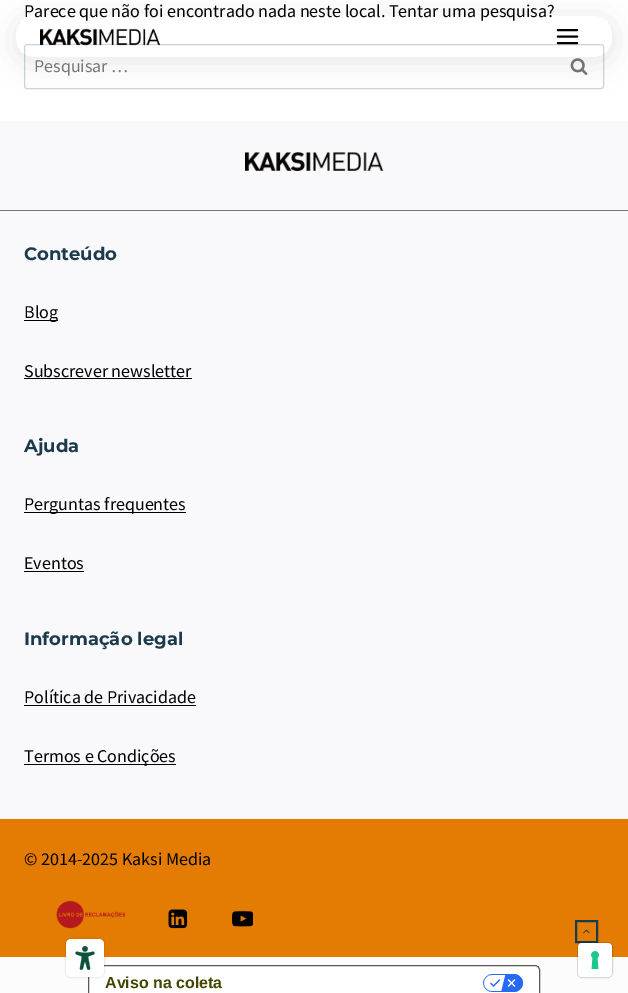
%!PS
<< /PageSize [628 993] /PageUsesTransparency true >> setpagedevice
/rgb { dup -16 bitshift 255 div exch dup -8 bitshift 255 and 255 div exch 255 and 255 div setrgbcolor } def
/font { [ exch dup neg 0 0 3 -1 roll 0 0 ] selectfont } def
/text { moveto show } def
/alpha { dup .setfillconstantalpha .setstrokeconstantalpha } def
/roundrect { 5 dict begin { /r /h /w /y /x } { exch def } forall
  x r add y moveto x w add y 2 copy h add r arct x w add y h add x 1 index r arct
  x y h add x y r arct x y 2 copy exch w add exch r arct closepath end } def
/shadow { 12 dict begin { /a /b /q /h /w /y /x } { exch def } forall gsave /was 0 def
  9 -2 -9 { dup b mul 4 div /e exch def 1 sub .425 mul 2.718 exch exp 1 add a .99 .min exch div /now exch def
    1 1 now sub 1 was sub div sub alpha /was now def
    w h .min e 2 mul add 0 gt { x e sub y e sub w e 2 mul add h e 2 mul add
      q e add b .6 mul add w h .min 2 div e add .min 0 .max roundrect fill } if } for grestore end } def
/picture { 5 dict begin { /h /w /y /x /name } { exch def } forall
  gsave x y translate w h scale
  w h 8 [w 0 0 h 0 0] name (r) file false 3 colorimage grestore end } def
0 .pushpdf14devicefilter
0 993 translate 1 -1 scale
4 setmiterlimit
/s1 { /SourceSansPro-Regular 18 font 16#000000 rgb } def
/s2 { /SourceSansPro-Regular 18 font 16#767676 rgb } def
/s3 { /Montserrat-Bold 18 font 16#1B3A4B rgb } def
/s4 { /LiberationSans-Bold 16 font 16#444400 rgb } def
16#FCFCFD rgb
0 0 628 993 rectfill
16#FFFFFF rgb
0 0 628 121 rectfill
16#CBD5E0 rgb
24.5 44.5 579 44 2.5 roundrect stroke
(pic2.raw) 570 58 18 17 picture
gsave
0 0 moveto 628 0 lineto 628 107 lineto 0 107 lineto closepath 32 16 moveto 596 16 lineto 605 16 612 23 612 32 curveto 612 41 lineto 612 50 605 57 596 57 curveto 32 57 lineto 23 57 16 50 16 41 curveto 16 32 lineto 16 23 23 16 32 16 curveto closepath eoclip newpath
16#000000 rgb
16 20 596 41 16 15 0.1 shadow
grestore
(pic1.raw) 40 28 120 18 picture
16#000000 rgb
2.1 setlinewidth
1 setlinecap
1 setlinejoin
558 36.5 moveto 577 36.5 lineto 558 30 moveto 577 30 lineto 558 43 moveto 577 43 lineto stroke
s1
(Parece que não foi encontrado nada neste local. Tentar uma pesquisa?) 24 17 text
s2
(Pesquisar …) 34 72 text
16#F9F9FB rgb
0 121 628 89 rectfill
16#767676 rgb
0 210 628 1 rectfill
(pic3.raw) 245 152 138 19 picture
16#F9F9FB rgb
0 211 628 608 rectfill
s3
(Conteúdo) 24 260 text
16#000000 rgb
24 320 34 1 rectfill
s1
(Blog) 24 318 text
(Subscrever newsletter) 24 377 text
24 378 168 1 rectfill
s3
(Ajuda) 24 452 text
16#000000 rgb
24 512 162 1 rectfill
s1
(Perguntas frequentes) 24 510 text
(Eventos) 24 569 text
24 571 60 1 rectfill
s3
(Informação legal) 24 645 text
s1
(Política de Privacidade) 24 703 text
24 705 172 1 rectfill
24 764 152 1 rectfill
(Termos e Condições) 24 762 text
16#E47B02 rgb
0 819 628 138 rectfill
s1
(© 2014-2025 Kaksi Media) 24 865 text
(pic4.raw) 56 900 70 29 picture
(pic5.raw) 168 909 20 20 picture
(pic6.raw) 232 911 21 16 picture
16#1B3A4B rgb
2 setlinewidth
0 setlinecap
0 setlinejoin
576 921 21 21 rectstroke
(pic7.raw) 583 929 7 5 picture
16#FFFFFF rgb
88.5 965.5 451 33 4.5 roundrect gsave fill grestore
16#595959 rgb
1 setlinewidth
stroke
16#000000 rgb
66 939 38 38 5 1 0.2 shadow
16#FFFFFF rgb
66 939 38 38 5 roundrect fill
(pic8.raw) 75 946 20 24 picture
0.15 alpha
16#000000 rgb
577.5 942.5 35 35 4.5 roundrect stroke
1 alpha
16#FFFFFF rgb
578 943 34 34 4 roundrect fill
(pic9.raw) 591 951 8 18 picture
s4
(Aviso na coleta) 105 988 text
(pic10.raw) 483 974 40 18 picture
.poppdf14devicefilter showpage
